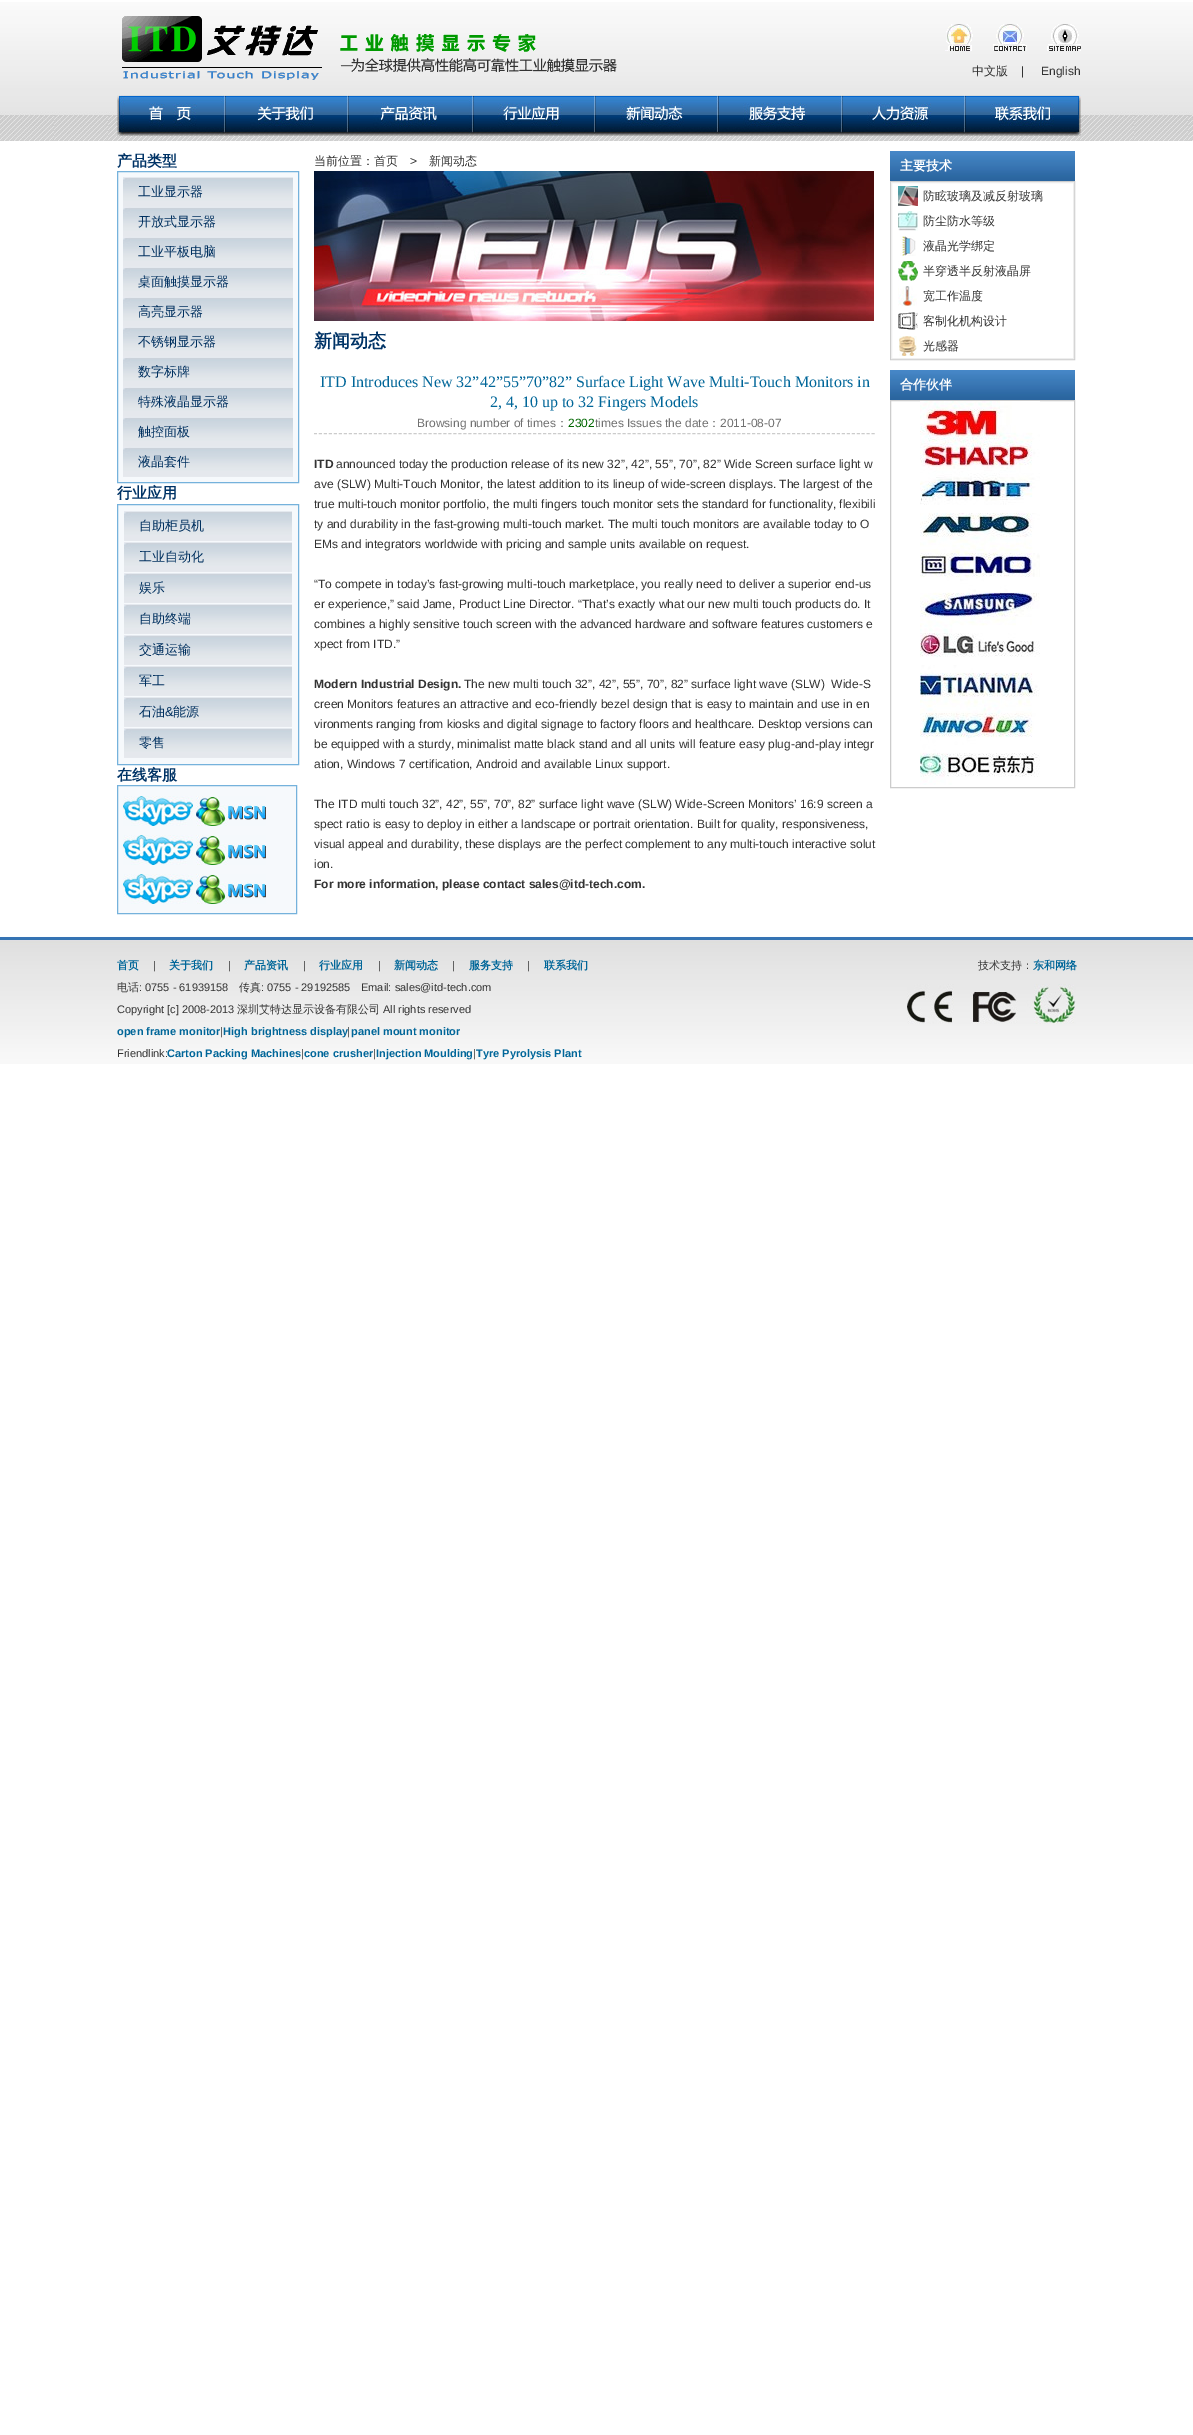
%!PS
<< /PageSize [1193 2435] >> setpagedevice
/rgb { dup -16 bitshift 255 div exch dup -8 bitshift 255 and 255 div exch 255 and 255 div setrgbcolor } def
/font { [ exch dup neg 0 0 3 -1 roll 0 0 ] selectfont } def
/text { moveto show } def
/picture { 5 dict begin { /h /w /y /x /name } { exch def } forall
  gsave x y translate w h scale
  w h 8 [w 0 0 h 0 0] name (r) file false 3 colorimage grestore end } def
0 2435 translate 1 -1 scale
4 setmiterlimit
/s1 { /WenQuanYiZenHei-Medium 12 font 16#333333 rgb } def
/s2 { /LiberationSans-Regular 12 font 16#333333 rgb } def
/s3 { /WenQuanYiZenHei-Bold 15 font 16#003366 rgb } def
/s4 { /WenQuanYiZenHei-Medium 13 font 16#00305F rgb } def
/s5 { /LiberationSans-Regular 13 font 16#00305F rgb } def
/s6 { /WenQuanYiZenHei-Bold 18 font 16#003366 rgb } def
/s7 { /LiberationSerif-Regular 16 font 16#006699 rgb } def
/s8 { /LiberationSans-Regular 12 font 16#717171 rgb } def
/s9 { /WenQuanYiZenHei-Medium 12 font 16#717171 rgb } def
/s10 { /LiberationSans-Regular 12 font 16#006600 rgb } def
/s11 { /LiberationSans-Bold 12 font 16#333333 rgb } def
/s12 { /WenQuanYiZenHei-Bold 13 font 16#FFFFFF rgb } def
/s13 { /WenQuanYiZenHei-Bold 11 font 16#006699 rgb } def
/s14 { /LiberationSans-Regular 11 font 16#333333 rgb } def
/s15 { /WenQuanYiZenHei-Medium 11 font 16#333333 rgb } def
/s16 { /LiberationSans-Bold 11 font 16#006699 rgb } def
16#FFFFFF rgb
0 0 1193 2435 rectfill
(pic1.raw) 0 2 1193 139 picture
(pic2.raw) 122 16 495 64 picture
(pic3.raw) 945 24 28 27 picture
(pic4.raw) 993 24 34 27 picture
(pic5.raw) 1047 24 34 27 picture
s1
(中文版) 972 75 text
s2
(|) 1021 75 text
(English) 1041 75 text
(pic6.raw) 117 95 109 41 picture
(pic7.raw) 226 95 123 41 picture
(pic8.raw) 349 95 125 41 picture
(pic9.raw) 474 95 122 41 picture
(pic10.raw) 596 95 123 41 picture
(pic11.raw) 719 95 124 41 picture
(pic12.raw) 843 95 123 41 picture
(pic13.raw) 966 95 115 41 picture
s3
(产品类型) 117 166 text
16#F6F9FC rgb
117.5 171.5 moveto 298.5 171.5 lineto 298.5 482.5 lineto 117.5 482.5 lineto closepath gsave fill grestore
16#75B2DC rgb
stroke
(pic14.raw) 123 177 170 30 picture
s4
(工业显示器) 138 196 text
(pic14.raw) 123 207 170 30 picture
(开放式显示器) 138 226 text
(pic14.raw) 123 237 170 30 picture
(工业平板电脑) 138 256 text
(pic14.raw) 123 267 170 30 picture
(桌面触摸显示器) 138 286 text
(pic14.raw) 123 297 170 30 picture
(高亮显示器) 138 316 text
(pic14.raw) 123 327 170 30 picture
(不锈钢显示器) 138 346 text
(pic14.raw) 123 357 170 30 picture
(数字标牌) 138 376 text
(pic14.raw) 123 387 170 30 picture
(特殊液晶显示器) 138 406 text
(pic14.raw) 123 417 170 30 picture
(触控面板) 138 436 text
(pic14.raw) 123 447 170 30 picture
(液晶套件) 138 466 text
s3
(行业应用) 117 498 text
16#F6F9FC rgb
117.5 504.5 moveto 298.5 504.5 lineto 298.5 764.5 lineto 117.5 764.5 lineto closepath gsave fill grestore
16#75B2DC rgb
stroke
(pic15.raw) 124 511 168 30 picture
s4
(自助柜员机) 139 530 text
(pic15.raw) 124 542 168 30 picture
(工业自动化) 139 561 text
(pic15.raw) 124 573 168 30 picture
(娱乐) 139 592 text
(pic15.raw) 124 604 168 30 picture
(自助终端) 139 623 text
(pic15.raw) 124 635 168 30 picture
(交通运输) 139 654 text
(pic15.raw) 124 666 168 30 picture
(军工) 139 685 text
(pic15.raw) 124 697 168 30 picture
(石油) 139 716 text
s5
(&) 165 716 text
s4
(能源) 173 716 text
(pic15.raw) 124 728 168 30 picture
(零售) 139 747 text
s3
(在线客服) 117 780 text
16#F6F9FC rgb
117.5 785.5 moveto 296.5 785.5 lineto 296.5 913.5 lineto 117.5 913.5 lineto closepath gsave fill grestore
16#75B2DC rgb
stroke
(pic16.raw) 123 796 70 30 picture
(pic17.raw) 196 796 70 30 picture
(pic16.raw) 123 835 70 30 picture
(pic17.raw) 196 835 70 30 picture
(pic16.raw) 123 874 70 30 picture
(pic17.raw) 196 874 70 30 picture
s1
(当前位置：首页) 314 165 text
s2
(>) 410 165 text
s1
(新闻动态) 429 165 text
(pic18.raw) 314 171 560 150 picture
s6
(新闻动态) 314 347 text
s7
(ITD Introduces New 32”42”55”70”82” Surface Light Wave Multi-Touch Monitors in) 320 387 text
(2, 4, 10 up to 32 Fingers Models) 490 407 text
16#CCCCCC rgb
[3 1.98] 0 setdash
314 433.5 moveto 875 433.5 lineto stroke
s8
(Browsing number of times) 417 427 text
s9
(：) 556 427 text
s10
(2302) 568 427 text
s8
(times Issues the date) 595 427 text
s9
(：) 708 427 text
s8
(2011-08-07) 720 427 text
s11
(ITD) 314 468 text
s2
(announced today the production release of its new 32”, 42”, 55”, 70”, 82” Wide Screen surface light w) 336 468 text
(ave \(SLW\) Multi-Touch Monitor, the latest addition to its lineup of wide-screen displays. The largest of the) 314 488 text
(true multi-touch monitor portfolio, the multi fingers touch monitor sets the standard for functionality, flexibili) 314 508 text
(ty and durability in the fast-growing multi-touch market. The multi touch monitors are available today to O) 314 528 text
(EMs and integrators worldwide with pricing and sample units available on request.) 314 548 text
(“To compete in today’s fast-growing multi-touch marketplace, you really need to deliver a superior end-us) 314 588 text
(er experience,” said Jame, Product Line Director. “That’s exactly what our new multi touch products do. It) 314 608 text
(combines a highly sensitive touch screen with the advanced hardware and software features customers e) 314 628 text
(xpect from ITD.”) 314 648 text
s11
(Modern Industrial Design.) 314 688 text
s2
(The new multi touch 32”, 42”, 55”, 70”, 82” surface light wave \(SLW\)  Wide-S) 464 688 text
(creen Monitors features an attractive and eco-friendly bezel design that is easy to maintain and use in en) 314 708 text
(vironments ranging from kiosks and digital signage to factory floors and healthcare. Desktop versions can) 314 728 text
(be equipped with a sturdy, minimalist matte black stand and all units will feature easy plug-and-play integr) 314 748 text
(ation, Windows 7 certification, Android and available Linux support.) 314 768 text
(The ITD multi touch 32”, 42”, 55”, 70”, 82” surface light wave \(SLW\) Wide-Screen Monitors’ 16:9 screen a) 314 808 text
(spect ratio is easy to deploy in either a landscape or portrait orientation. Built for quality, responsiveness,) 314 828 text
(visual appeal and durability, these displays are the perfect complement to any multi-touch interactive solut) 314 848 text
(ion.) 314 868 text
s11
(For more information, please contact sales@itd-tech.com.) 314 888 text
(pic19.raw) 890 151 185 30 picture
s12
(主要技术) 900 170 text
16#CCCCCC rgb
[] 0 setdash
890.5 181.5 184 178 rectstroke
16#EEEEEE rgb
891.5 182.5 182 176 rectstroke
(pic20.raw) 898 186 20 20 picture
s1
(防眩玻璃及减反射玻璃) 923 200 text
(pic21.raw) 898 211 20 20 picture
(防尘防水等级) 923 225 text
(pic22.raw) 900 236 16 20 picture
(液晶光学绑定) 923 250 text
(pic23.raw) 898 261 20 20 picture
(半穿透半反射液晶屏) 923 275 text
(pic24.raw) 898 286 19 20 picture
(宽工作温度) 923 300 text
(pic25.raw) 898 312 20 18 picture
(客制化机构设计) 923 325 text
(pic26.raw) 899 336 18 20 picture
(光感器) 923 350 text
(pic19.raw) 890 370 185 30 picture
s12
(合作伙伴) 900 389 text
16#CCCCCC rgb
890.5 400.5 184 387 rectstroke
(pic27.raw) 920 401 120 384 picture
(pic28.raw) 0 936 1193 128 picture
s13
(首页) 117 969 text
s14
(|) 153 969 text
s13
(关于我们) 169 969 text
s14
(|) 228 969 text
s13
(产品资讯) 244 969 text
s14
(|) 303 969 text
s13
(行业应用) 319 969 text
s14
(|) 378 969 text
s13
(新闻动态) 394 969 text
s14
(|) 452 969 text
s13
(服务支持) 469 969 text
s14
(|) 527 969 text
s13
(联系我们) 544 969 text
s15
(电话) 117 991 text
s14
(: 0755 - 61939158) 139 991 text
s15
(传真) 239 991 text
s14
(: 0755 - 29192585) 261 991 text
(Email: sales@itd-tech.com) 361 991 text
(Copyright [c] 2008-2013) 117 1013 text
s15
(深圳艾特达显示设备有限公司) 237 1013 text
s14
(All rights reserved) 383 1013 text
s16
(open frame monitor High brightness display panel mount monitor) 117 1035 text
s14
(|) 220 1035 text
(|) 347 1035 text
(Friendlink:) 117 1057 text
s16
(Carton Packing Machines cone crusher Injection Moulding Tyre Pyrolysis Plant) 167 1057 text
s14
(|) 301 1057 text
(|) 373 1057 text
(|) 473 1057 text
s15
(技术支持：) 978 969 text
s13
(东和网络) 1033 969 text
(pic29.raw) 907 984 169 40 picture
showpage
